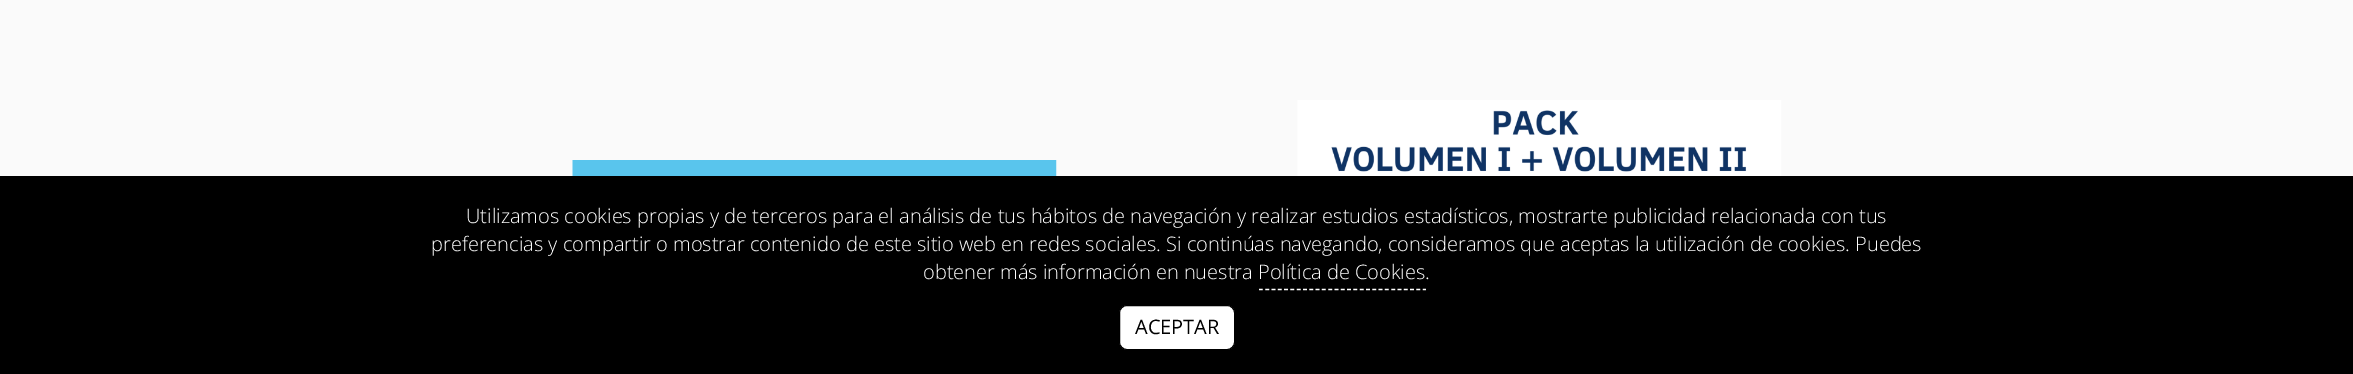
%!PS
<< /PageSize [2353 374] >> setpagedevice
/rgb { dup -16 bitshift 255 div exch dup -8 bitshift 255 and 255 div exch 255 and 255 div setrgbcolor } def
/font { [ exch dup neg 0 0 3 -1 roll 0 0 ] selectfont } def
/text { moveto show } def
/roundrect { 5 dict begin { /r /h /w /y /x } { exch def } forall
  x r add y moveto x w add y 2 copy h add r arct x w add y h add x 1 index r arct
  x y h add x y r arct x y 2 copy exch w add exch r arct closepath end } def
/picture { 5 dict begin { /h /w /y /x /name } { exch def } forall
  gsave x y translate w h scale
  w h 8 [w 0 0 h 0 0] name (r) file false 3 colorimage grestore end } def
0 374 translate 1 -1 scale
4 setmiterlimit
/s1 { /OpenSans-Light 20 font 16#FFFFFF rgb } def
/s2 { /OpenSans-Regular 20 font 16#000000 rgb } def
16#FAFAFA rgb
0 0 2353 374 rectfill
(pic1.raw) 572 160 485 16 picture
(pic2.raw) 1297 100 485 76 picture
16#000000 rgb
0 176 2353 198 rectfill
s1
(Utilizamos cookies propias y de terceros para el análisis de tus hábitos de navegación y realizar estudios estadísticos, mostrarte publicidad relacionada con tus) 466 223 text
(preferencias y compartir o mostrar contenido de este sitio web en redes sociales. Si continúas navegando, consideramos que aceptas la utilización de cookies. Puedes) 431 251 text
(obtener más información en nuestra Política de Cookies.) 923 279 text
1.2 setlinewidth
[3.75 2.55] 0 setdash
1259 289.5 moveto 1426 289.5 lineto stroke
1119.5 305.5 115 44 7.5 roundrect gsave fill grestore
16#000000 rgb
1 setlinewidth
[] 0 setdash
stroke
s2
(ACEPTAR) 1135 334 text
showpage
